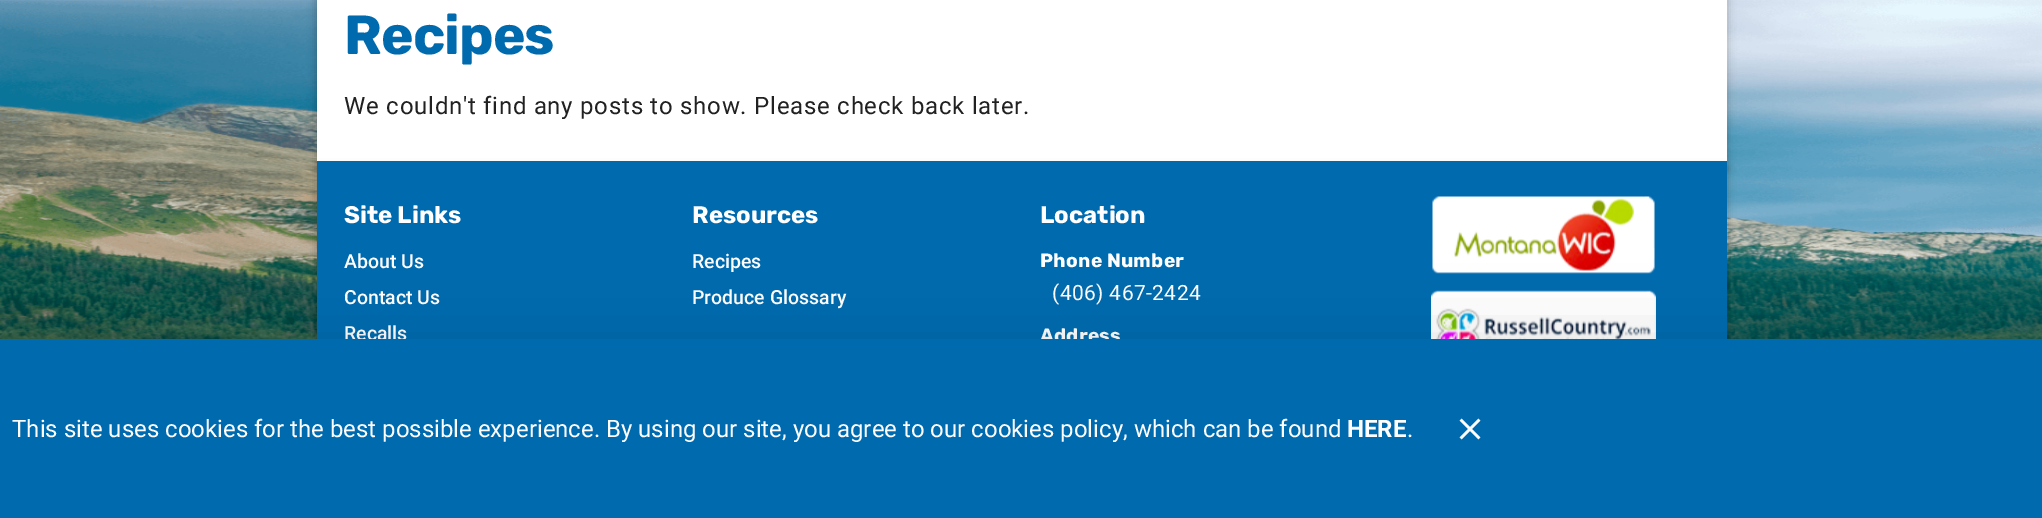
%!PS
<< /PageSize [2042 518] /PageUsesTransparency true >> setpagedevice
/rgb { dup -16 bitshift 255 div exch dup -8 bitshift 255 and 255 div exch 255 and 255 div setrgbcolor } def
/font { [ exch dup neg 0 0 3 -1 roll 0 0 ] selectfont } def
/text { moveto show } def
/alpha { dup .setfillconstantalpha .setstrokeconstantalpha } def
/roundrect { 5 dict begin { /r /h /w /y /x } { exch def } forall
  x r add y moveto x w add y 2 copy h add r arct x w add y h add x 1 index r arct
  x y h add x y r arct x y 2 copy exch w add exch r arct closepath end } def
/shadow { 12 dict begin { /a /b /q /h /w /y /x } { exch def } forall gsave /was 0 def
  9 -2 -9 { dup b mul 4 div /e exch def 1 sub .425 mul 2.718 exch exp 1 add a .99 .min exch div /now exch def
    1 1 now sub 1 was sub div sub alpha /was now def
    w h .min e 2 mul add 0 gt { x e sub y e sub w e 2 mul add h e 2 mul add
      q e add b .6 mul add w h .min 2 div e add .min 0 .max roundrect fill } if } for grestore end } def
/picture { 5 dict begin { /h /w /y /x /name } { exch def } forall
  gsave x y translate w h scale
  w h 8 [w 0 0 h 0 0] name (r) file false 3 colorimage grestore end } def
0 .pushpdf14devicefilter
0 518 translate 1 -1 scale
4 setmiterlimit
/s1 { /Rubik-Light 24 font 16#FFFFFF rgb } def
/s2 { /Roboto-Medium 19.5 font 16#FFFFFF rgb } def
/s3 { /Roboto-Regular 24 font 16#FFFFFF rgb } def
/s4 { /Roboto-Bold 24 font 16#FFFFFF rgb } def
16#FFFFFF rgb
0 0 2042 518 rectfill
(pic1.raw) 0 0 2042 339 picture
16#000000 rgb
315 -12 1413 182 0 4 0.2 shadow
16#FFFFFF rgb
317 0 1410 161 rectfill
/Rubik-Light 55 font
16#006AAF rgb
344 54 moveto -1 0 (Recipes) ashow
/Roboto-Regular 24 font
16#212121 rgb
344 114 moveto 0.75 0 (We couldn't find any posts to show. Please check back later.) ashow
16#000000 rgb
315 167 1413 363 0 4 0.2 shadow
16#006AAF rgb
317 161 1410 178 rectfill
s1
(Site Links) 344 223 text
s2
(About Us) 344 268 text
(Contact Us) 344 304 text
(Recalls) 344 340 text
s1
(Resources) 692 223 text
s2
(Recipes) 692 268 text
(Produce Glossary) 692 304 text
s1
(Location) 1040 223 text
/Rubik-Light 19.25 font
1040 267 moveto 0.25 0 (Phone Number) ashow
/Roboto-Regular 21 font
1052 300 moveto 0.4 0 (\(406\) 467-2424) ashow
/Rubik-Light 19.25 font
1040 342 moveto 0.25 0 (Address) ashow
(pic2.raw) 1432 196 223 78 picture
(pic3.raw) 1431 290 225 49 picture
16#000000 rgb
-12 341 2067 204 0 34.5 0.12 shadow
16#006AAF rgb
0 339 2042 179 rectfill
s3
(This site uses cookies for the best possible experience. By using our site, you agree to our cookies policy, which can be found) 12 437 text
s4
(HERE) 1347 437 text
s3
(.) 1407 437 text
(pic4.raw) 1459 418 22 22 picture
.poppdf14devicefilter showpage
